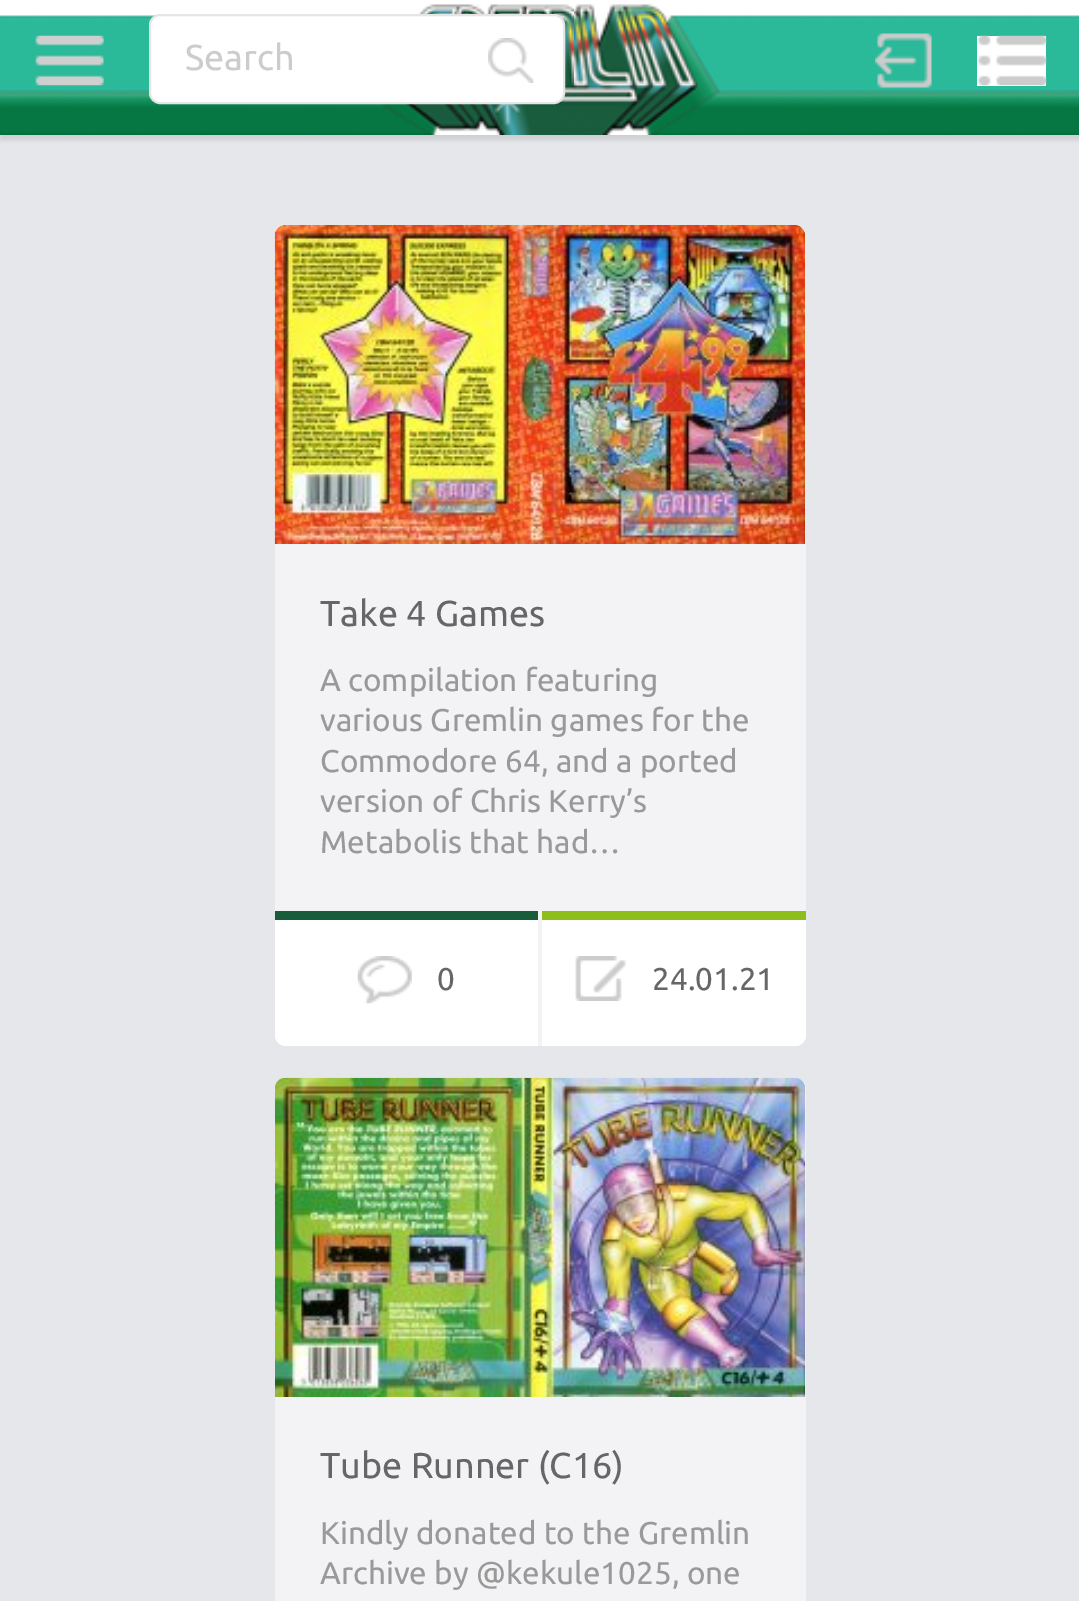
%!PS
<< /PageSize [1079 1601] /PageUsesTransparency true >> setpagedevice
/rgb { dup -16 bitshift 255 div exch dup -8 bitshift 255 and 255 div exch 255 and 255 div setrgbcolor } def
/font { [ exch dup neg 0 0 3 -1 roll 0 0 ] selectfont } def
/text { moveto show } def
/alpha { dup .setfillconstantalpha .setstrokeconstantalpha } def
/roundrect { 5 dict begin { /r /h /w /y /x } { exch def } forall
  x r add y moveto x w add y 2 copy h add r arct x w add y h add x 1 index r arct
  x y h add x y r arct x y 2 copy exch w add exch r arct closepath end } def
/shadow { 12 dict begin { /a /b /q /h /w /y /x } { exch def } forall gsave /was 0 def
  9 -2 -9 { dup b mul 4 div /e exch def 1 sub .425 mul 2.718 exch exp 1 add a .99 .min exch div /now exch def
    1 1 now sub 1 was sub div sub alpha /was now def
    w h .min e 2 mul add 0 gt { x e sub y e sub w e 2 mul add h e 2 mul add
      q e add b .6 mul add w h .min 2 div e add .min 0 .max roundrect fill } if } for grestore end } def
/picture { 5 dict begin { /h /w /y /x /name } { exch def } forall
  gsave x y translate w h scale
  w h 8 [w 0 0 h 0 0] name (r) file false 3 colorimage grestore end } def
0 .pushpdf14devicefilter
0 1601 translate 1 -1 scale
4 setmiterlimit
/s1 { /Ubuntu-Regular 36 font 16#CCCCCC rgb } def
/s2 { /Ubuntu-Regular 36 font 16#666666 rgb } def
/s3 { /Ubuntu-Regular 31.5 font 16#999999 rgb } def
/s4 { /Ubuntu-Regular 31.5 font 16#666666 rgb } def
16#E5E7EA rgb
0 0 1079 1601 rectfill
16#000000 rgb
0 -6 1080 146 0 2 0.1 shadow
16#FFFFFF rgb
0 0 1079 135 rectfill
(pic1.raw) 0 4 1079 131 picture
(pic2.raw) 35 35 69 51 picture
150 15 414 88 10 roundrect gsave fill grestore
16#E5E5E5 rgb
2 setlinewidth
stroke
s1
(Search) 185 70 text
(pic3.raw) 488 38 46 45 picture
(pic4.raw) 875 33 57 55 picture
16#FFFFFF rgb
977 36 69 50 rectfill
(pic5.raw) 978 35 69 51 picture
16#F3F3F5 rgb
275 225 531 821 11 roundrect fill
(pic6.raw) 274 225 532 319 picture
s2
(Take 4 Games) 320 626 text
s3
(A compilation featuring) 320 691 text
(various Gremlin games for the) 320 731 text
(Commodore 64, and a ported) 320 772 text
(version of Chris Kerry’s) 320 812 text
(Metabolis that had…) 320 853 text
16#FFFFFF rgb
275 911 moveto 538 911 lineto 538 1046 lineto 286 1046 lineto 280 1046 275 1041 275 1035 curveto closepath fill
16#195C3C rgb
275 911 263 9 rectfill
(pic7.raw) 357 956 55 48 picture
s4
(0) 437 990 text
16#FFFFFF rgb
542 911 moveto 806 911 lineto 806 1035 lineto 806 1041 801 1046 795 1046 curveto 542 1046 lineto closepath fill
16#8FBE1B rgb
542 911 264 9 rectfill
(pic8.raw) 575 956 51 45 picture
s4
(24.01.21) 652 990 text
16#F3F3F5 rgb
275 1078 531 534 11 roundrect fill
(pic9.raw) 275 1077 531 320 picture
s2
(Tube Runner \(C16\)) 320 1478 text
s3
(Kindly donated to the Gremlin) 320 1544 text
(Archive by @kekule1025, one) 320 1584 text
.poppdf14devicefilter showpage
